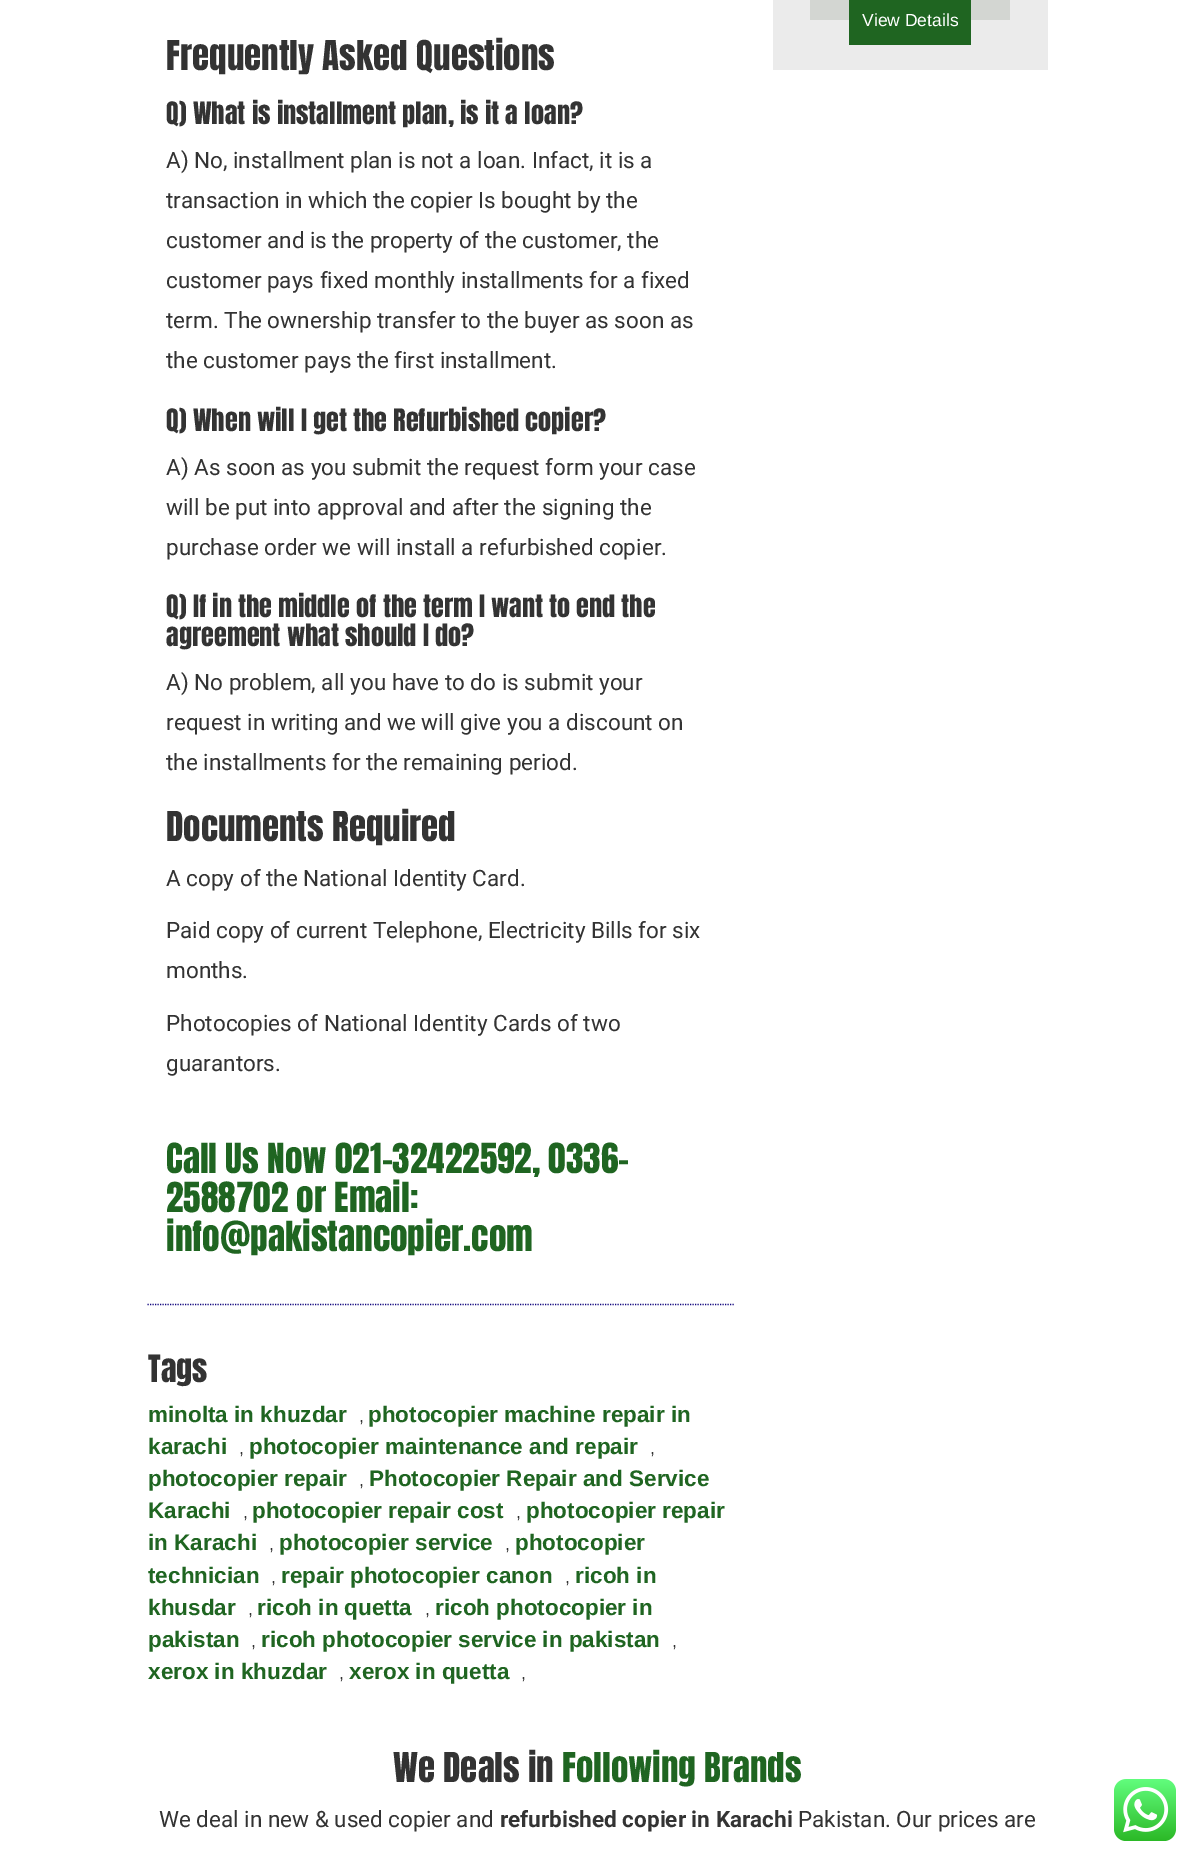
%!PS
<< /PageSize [1195 1860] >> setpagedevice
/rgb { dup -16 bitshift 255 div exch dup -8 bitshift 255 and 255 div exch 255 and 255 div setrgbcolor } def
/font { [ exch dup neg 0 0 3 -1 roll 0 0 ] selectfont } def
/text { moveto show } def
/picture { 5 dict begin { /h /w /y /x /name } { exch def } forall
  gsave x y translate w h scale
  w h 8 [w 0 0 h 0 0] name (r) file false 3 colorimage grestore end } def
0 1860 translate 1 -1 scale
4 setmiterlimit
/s1 { /LiberationSans-Regular 17.5 font 16#FFFFFF rgb } def
/s2 { /Anton-Regular 35 font 16#333333 rgb } def
/s3 { /Anton-Regular 26.25 font 16#333333 rgb } def
/s4 { /Roboto-Regular 22.5 font 16#333333 rgb } def
/s5 { /Anton-Regular 35.25 font 16#1F6521 rgb } def
/s6 { /Anton-Regular 32 font 16#333333 rgb } def
/s7 { /LiberationSans-Bold 22.5 font 16#1F6521 rgb } def
/s8 { /LiberationSans-Regular 17.5 font 16#333333 rgb } def
/s9 { /Anton-Regular 35 font 16#1F6521 rgb } def
/s10 { /Roboto-Bold 22.5 font 16#333333 rgb } def
16#FFFFFF rgb
0 0 1195 1860 rectfill
16#EBEBEB rgb
773 0 275 70 rectfill
16#D3D6D2 rgb
810 0 200 20 rectfill
16#1F6521 rgb
849 0 122 45 rectfill
s1
(View Details) 862 26 text
s2
(Frequently Asked Questions) 166 70 text
s3
(Q\) What is installment plan, is it a loan?) 166 124 text
s4
(A\) No, installment plan is not a loan. Infact, it is a) 166 168 text
(transaction in which the copier Is bought by the) 166 208 text
(customer and is the property of the customer, the) 166 248 text
(customer pays fixed monthly installments for a fixed) 166 288 text
(term. The ownership transfer to the buyer as soon as) 166 328 text
(the customer pays the first installment.) 166 368 text
s3
(Q\) When will I get the Refurbished copier?) 166 431 text
s4
(A\) As soon as you submit the request form your case) 166 475 text
(will be put into approval and after the signing the) 166 515 text
(purchase order we will install a refurbished copier.) 166 555 text
s3
(Q\) If in the middle of the term I want to end the) 166 617 text
(agreement what should I do?) 166 646 text
s4
(A\) No problem, all you have to do is submit your) 166 690 text
(request in writing and we will give you a discount on) 166 730 text
(the installments for the remaining period.) 166 770 text
s2
(Documents Required) 166 841 text
s4
(A copy of the National Identity Card.) 166 886 text
(Paid copy of current Telephone, Electricity Bills for six) 166 938 text
(months.) 166 978 text
(Photocopies of National Identity Cards of two) 166 1031 text
(guarantors.) 166 1071 text
s5
(Call Us Now 021-32422592, 0336-) 166 1173 text
(2588702 or Email:) 166 1212 text
(info@pakistancopier.com) 166 1251 text
16#12077F rgb
1.2 setlinewidth
[1.25 1.25] 0 setdash
147.5 1304.5 moveto 735 1304.5 lineto stroke
s6
(Tags) 148 1382 text
s7
(minolta in khuzdar) 148 1422 text
s8
(,) 359 1422 text
s7
(photocopier machine repair in) 368 1422 text
(karachi) 148 1454 text
s8
(,) 239 1454 text
s7
(photocopier maintenance and repair) 249 1454 text
s8
(,) 650 1454 text
s7
(photocopier repair) 148 1486 text
s8
(,) 359 1486 text
s7
(Photocopier Repair and Service) 369 1486 text
(Karachi) 148 1518 text
s8
(,) 243 1518 text
s7
(photocopier repair cost) 252 1518 text
s8
(,) 516 1518 text
s7
(photocopier repair) 526 1518 text
(in Karachi) 148 1550 text
s8
(,) 269 1550 text
s7
(photocopier service) 279 1550 text
s8
(,) 505 1550 text
s7
(photocopier) 515 1550 text
(technician) 148 1583 text
s8
(,) 271 1583 text
s7
(repair photocopier canon) 281 1583 text
s8
(,) 565 1583 text
s7
(ricoh in) 575 1583 text
(khusdar) 148 1615 text
s8
(,) 248 1615 text
s7
(ricoh in quetta) 257 1615 text
s8
(,) 425 1615 text
s7
(ricoh photocopier in) 435 1615 text
(pakistan) 148 1647 text
s8
(,) 251 1647 text
s7
(ricoh photocopier service in pakistan) 261 1647 text
s8
(,) 672 1647 text
s7
(xerox in khuzdar) 148 1679 text
s8
(,) 339 1679 text
s7
(xerox in quetta) 349 1679 text
s8
(,) 521 1679 text
s2
(We Deals in) 393 1782 text
s9
(Following Brands) 562 1782 text
s4
(We deal in new & used copier and) 159 1827 text
s10
(refurbished copier in Karachi) 500 1827 text
s4
(Pakistan. Our prices are) 798 1827 text
(pic1.raw) 1114 1779 62 62 picture
showpage
